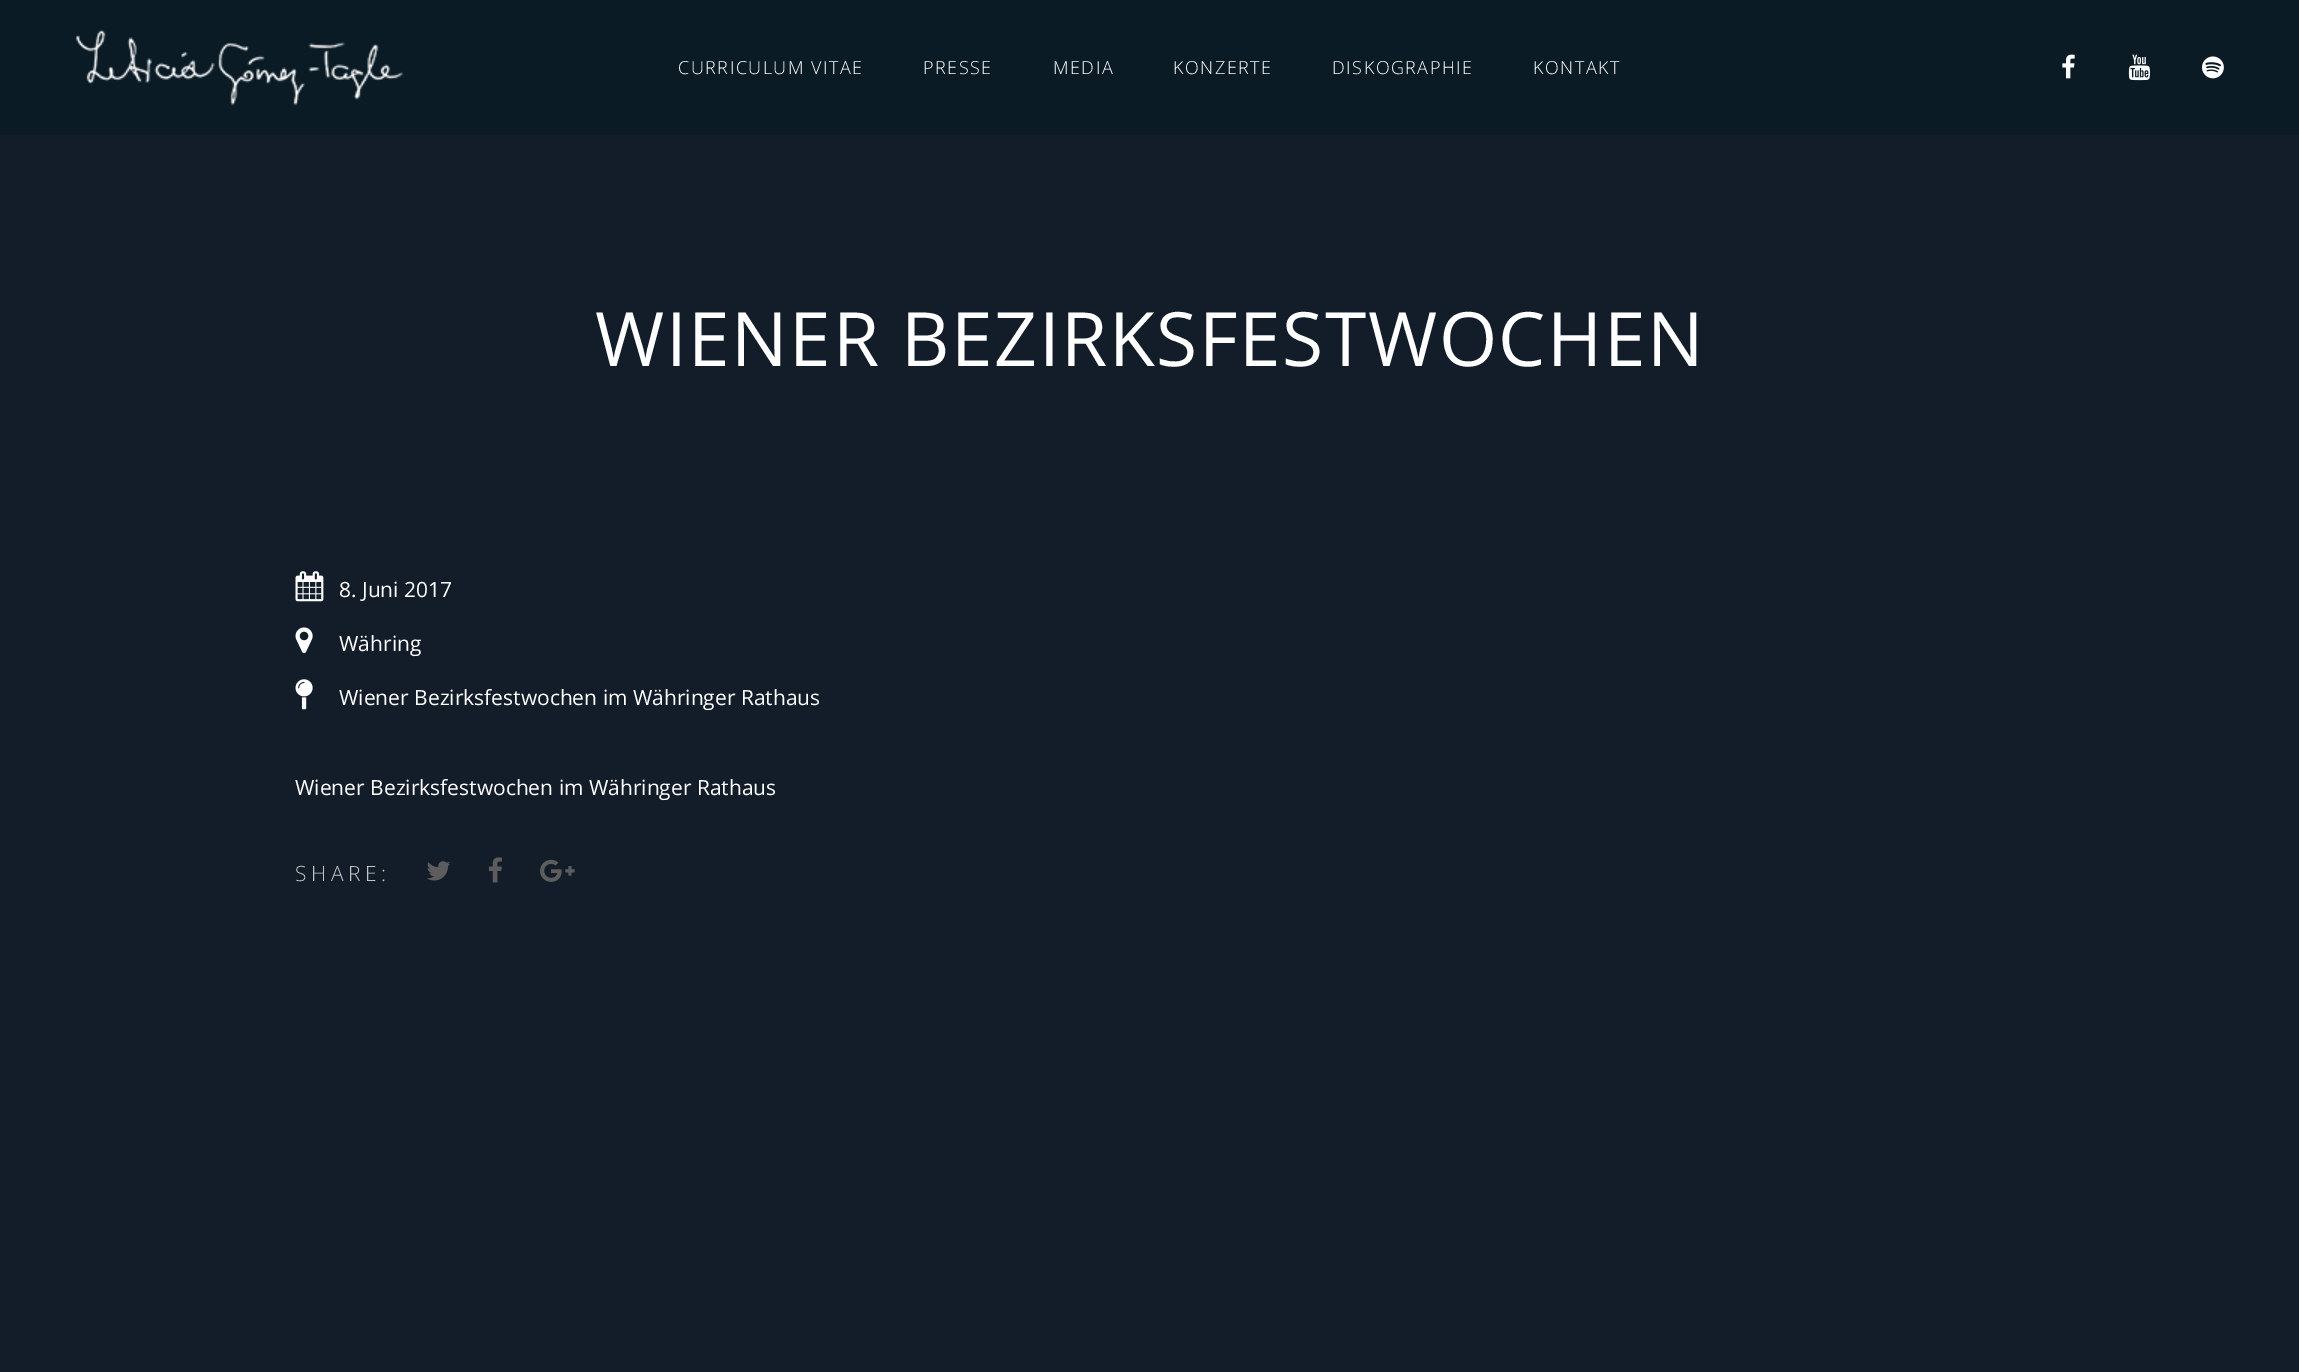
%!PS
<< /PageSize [2299 1372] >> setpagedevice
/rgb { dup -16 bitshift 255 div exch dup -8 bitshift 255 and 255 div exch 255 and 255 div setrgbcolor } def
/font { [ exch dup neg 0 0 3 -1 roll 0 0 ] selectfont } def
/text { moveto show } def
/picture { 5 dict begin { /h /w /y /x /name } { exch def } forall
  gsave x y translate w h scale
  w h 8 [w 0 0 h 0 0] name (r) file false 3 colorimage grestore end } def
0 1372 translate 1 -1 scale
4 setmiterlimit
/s1 { /OpenSans-Regular 21 font 16#FFFFFF rgb } def
16#121D29 rgb
0 0 2299 1372 rectfill
16#0A1B25 rgb
0 0 2299 135 rectfill
(pic1.raw) 76 29 328 77 picture
/OpenSans-Light 18 font
16#FFFFFF rgb
678 74 moveto 1.5 0 (CURRICULUM VITAE) ashow
923 74 moveto 1.5 0 (PRESSE) ashow
1053 74 moveto 1.5 0 (MEDIA) ashow
1173 74 moveto 1.5 0 (KONZERTE) ashow
1332 74 moveto 1.5 0 (DISKOGRAPHIE) ashow
1533 74 moveto 1.5 0 (KONTAKT) ashow
(pic2.raw) 2062 54 13 25 picture
(pic3.raw) 2128 54 22 27 picture
(pic4.raw) 2202 56 22 23 picture
/OpenSans-Regular 75 font
595 366 moveto 1.5 0 (WIENER BEZIRKSFESTWOCHEN) ashow
(pic5.raw) 295 571 29 31 picture
s1
(8. Juni 2017) 339 597 text
(pic6.raw) 295 627 18 27 picture
(Währing) 339 651 text
(pic7.raw) 295 679 18 31 picture
(Wiener Bezirksfestwochen im Währinger Rathaus) 339 705 text
(Wiener Bezirksfestwochen im Währinger Rathaus) 295 795 text
/OpenSans-Light 21 font
16#C5C5C5 rgb
295 881 moveto 4.5 0 (SHARE:) ashow
(pic8.raw) 427 861 24 20 picture
(pic9.raw) 488 857 14 26 picture
(pic10.raw) 540 859 35 23 picture
showpage
